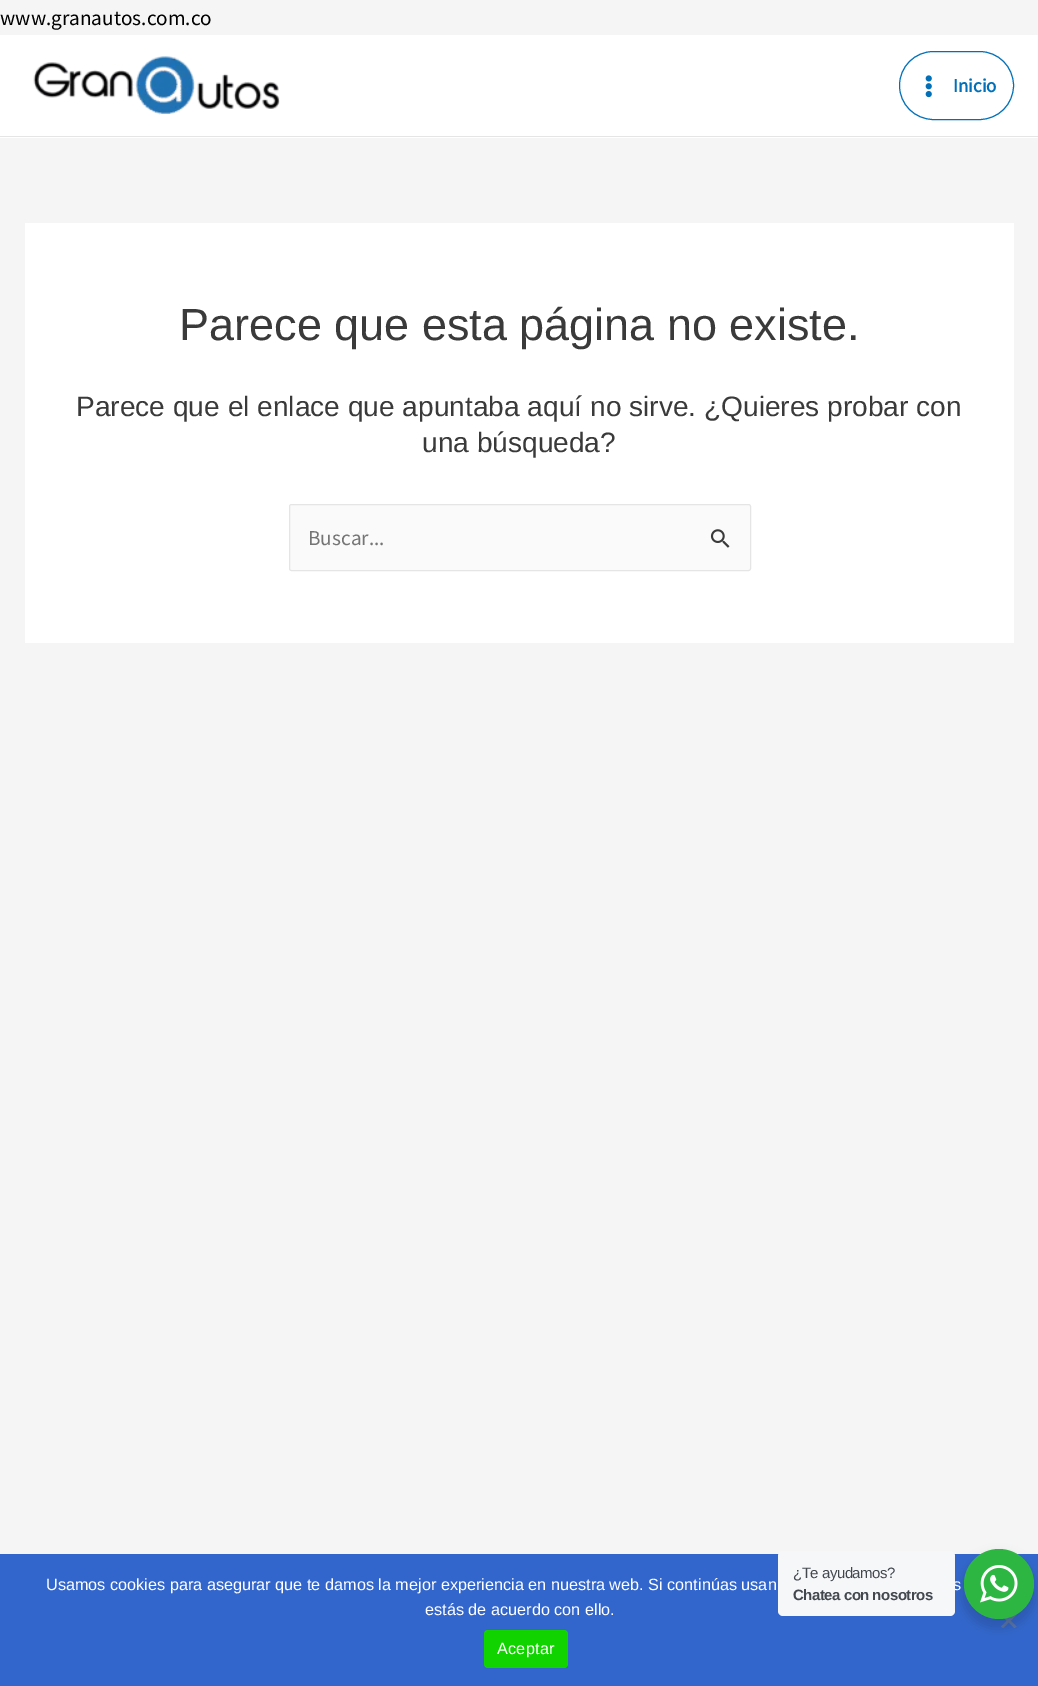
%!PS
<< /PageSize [1038 1686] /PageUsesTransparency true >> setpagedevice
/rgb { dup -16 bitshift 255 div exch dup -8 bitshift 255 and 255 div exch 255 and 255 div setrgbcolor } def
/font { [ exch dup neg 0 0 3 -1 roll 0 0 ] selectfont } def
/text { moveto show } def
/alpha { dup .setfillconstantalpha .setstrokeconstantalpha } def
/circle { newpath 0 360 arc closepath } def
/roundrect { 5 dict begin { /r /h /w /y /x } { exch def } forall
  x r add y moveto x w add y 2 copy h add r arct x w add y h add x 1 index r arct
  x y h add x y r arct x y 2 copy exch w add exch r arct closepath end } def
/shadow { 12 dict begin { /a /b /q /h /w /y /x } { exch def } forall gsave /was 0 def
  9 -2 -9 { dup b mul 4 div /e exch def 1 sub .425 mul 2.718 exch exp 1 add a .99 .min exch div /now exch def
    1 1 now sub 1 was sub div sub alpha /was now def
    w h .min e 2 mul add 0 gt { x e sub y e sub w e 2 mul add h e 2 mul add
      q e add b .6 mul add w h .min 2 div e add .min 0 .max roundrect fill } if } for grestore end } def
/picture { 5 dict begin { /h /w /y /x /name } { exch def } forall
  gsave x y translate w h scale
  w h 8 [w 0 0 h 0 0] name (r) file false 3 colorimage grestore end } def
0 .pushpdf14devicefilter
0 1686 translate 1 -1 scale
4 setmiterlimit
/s1 { /SourceSansPro-Regular 21.25 font 16#000000 rgb } def
/s2 { /SourceSansPro-Bold 19 font 16#0170B9 rgb } def
/s3 { /LiberationSans-Regular 45 font 16#3A3A3A rgb } def
/s4 { /LiberationSans-Regular 28.1 font 16#3A3A3A rgb } def
/s5 { /SourceSansPro-Regular 21.25 font 16#757575 rgb } def
/s6 { /LiberationSans-Regular 16.25 font 16#FFFFFF rgb } def
16#F5F5F5 rgb
0 0 1038 1686 rectfill
s1
(www.granautos.com.co) 0 25 text
16#FFFFFF rgb
0 35 1038 103 rectfill
16#E5E5E5 rgb
0 136 1038 1 rectfill
(pic1.raw) 33 56 247 59 picture
16#0170B9 rgb
899.5 51.5 114 68 34 roundrect stroke
(pic2.raw) 925 75 7 23 picture
s2
(Inicio) 953 92 text
16#FFFFFF rgb
25 223 989 420 rectfill
s3
(Parece que esta página no existe.) 179 340 text
s4
(Parece que el enlace que apuntaba aquí no sirve. ¿Quieres probar con) 76 416 text
(una búsqueda?) 422 452 text
16#FAFAFA rgb
289.5 504.5 461 66 2 roundrect gsave fill grestore
16#E5E5E5 rgb
stroke
s5
(Buscar...) 308 545 text
(pic3.raw) 710 529 20 19 picture
16#3366CC rgb
0 1554 1038 132 rectfill
16#5A73A6 rgb
1014.5 1613 moveto 1016.5 1615 lineto 1003 1628 lineto 1001 1626.5 lineto closepath fill
1001 1615 moveto 1003 1613 lineto 1016.5 1626.5 lineto 1014.5 1628 lineto closepath fill
16#000000 rgb
961 1554 75 75 37.5 5 0.14 shadow
s6
(s) 953 1590 text
16#F5F7F9 rgb
778 1551 177 65 5 roundrect fill
/LiberationSans-Regular 15 font
16#43474E rgb
793 1578 moveto -0.5 0 (¿Te ayudamos?) ashow
/LiberationSans-Bold 15 font
793 1600 moveto -0.5 0 (Chatea con nosotros) ashow
16#2DB742 rgb
999 1584 35 circle fill
(pic4.raw) 980 1565 38 38 picture
s6
(Usamos cookies para asegurar que te damos la mejor experiencia en nuestra web. Si continúas usan) 46 1590 text
(estás de acuerdo con ello.) 425 1615 text
16#11D300 rgb
484 1630 84 38 4 roundrect fill
16#FFFFFF rgb
497 1654 moveto 0.25 0 (Aceptar) ashow
.poppdf14devicefilter showpage
